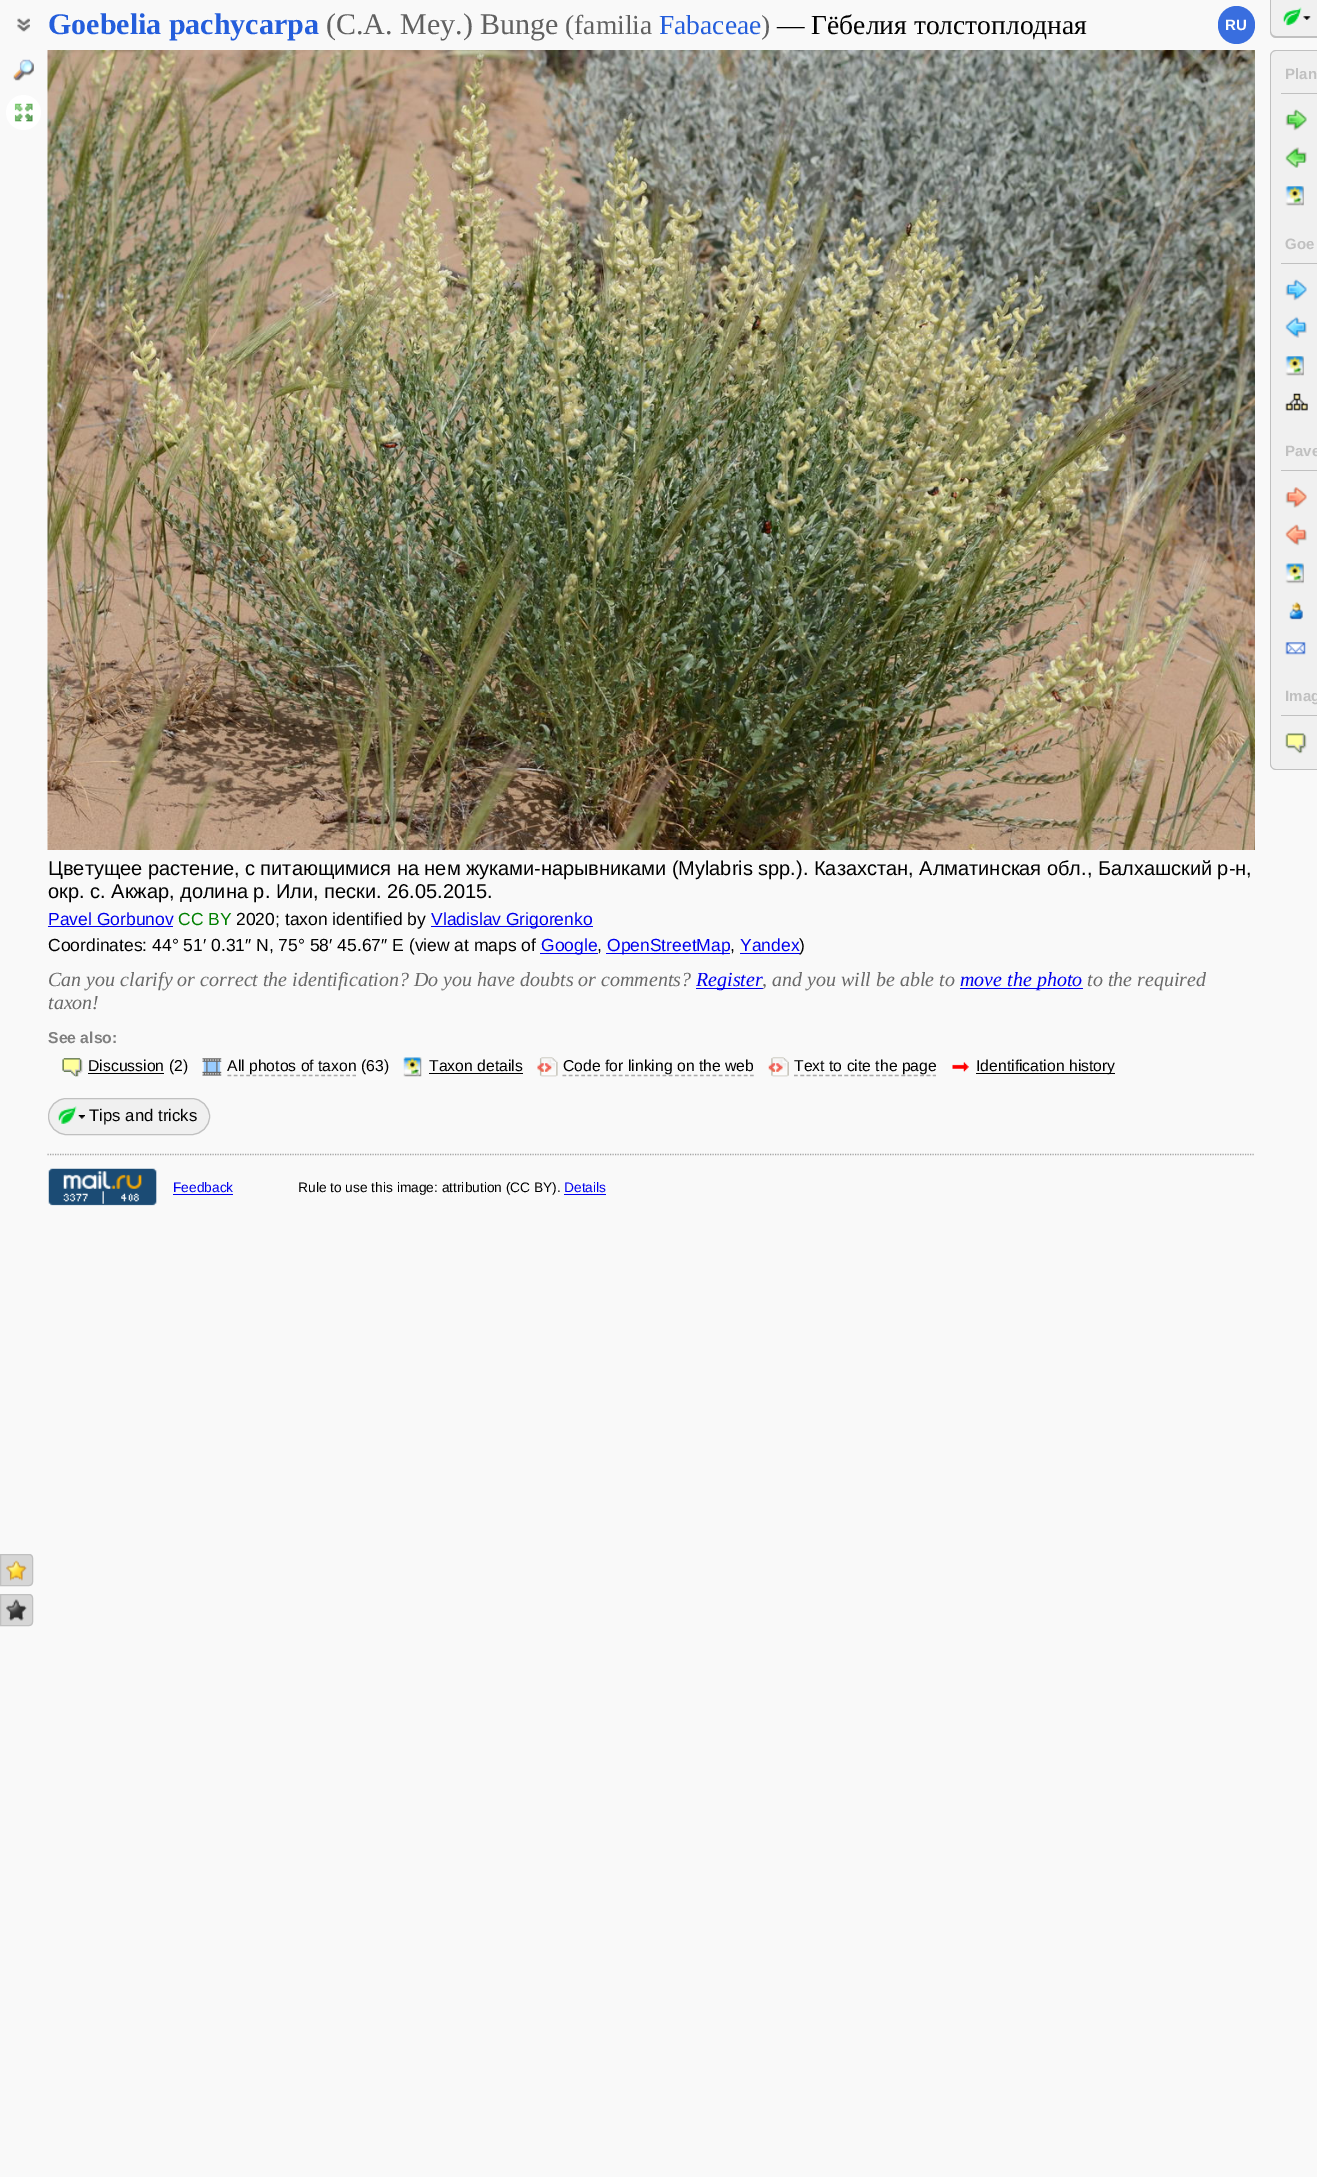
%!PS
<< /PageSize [1317 2177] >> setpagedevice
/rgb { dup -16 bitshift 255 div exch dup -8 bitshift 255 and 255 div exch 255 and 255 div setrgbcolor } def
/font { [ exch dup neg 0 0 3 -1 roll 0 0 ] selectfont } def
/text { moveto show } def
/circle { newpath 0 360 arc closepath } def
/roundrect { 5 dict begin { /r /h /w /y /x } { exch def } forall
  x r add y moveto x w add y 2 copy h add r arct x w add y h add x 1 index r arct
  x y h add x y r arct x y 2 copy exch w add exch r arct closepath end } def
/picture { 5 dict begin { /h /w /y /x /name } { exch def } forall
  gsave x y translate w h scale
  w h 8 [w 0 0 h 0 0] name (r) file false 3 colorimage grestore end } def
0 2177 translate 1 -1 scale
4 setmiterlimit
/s1 { /LiberationSerif-Bold 30 font 16#245EDC rgb } def
/s2 { /LiberationSerif-Regular 30 font 16#606060 rgb } def
/s3 { /LiberationSerif-Regular 27.5 font 16#606060 rgb } def
/s4 { /LiberationSerif-Regular 27.5 font 16#245EDC rgb } def
/s5 { /LiberationSerif-Regular 27.5 font 16#000000 rgb } def
/s6 { /LiberationSans-Bold 15 font 16#FEFEFE rgb } def
/s7 { /LiberationSans-Bold 15 font 16#C0C0C0 rgb } def
/s8 { /LiberationSans-Regular 20 font 16#000000 rgb } def
/s9 { /LiberationSans-Regular 17.5 font 16#0000EE rgb } def
/s10 { /LiberationSans-Regular 17.5 font 16#008000 rgb } def
/s11 { /LiberationSans-Regular 17.5 font 16#000000 rgb } def
/s12 { /LiberationSerif-Italic 20 font 16#696969 rgb } def
/s13 { /LiberationSerif-Italic 20 font 16#0000EE rgb } def
/s14 { /LiberationSans-Bold 15.75 font 16#808080 rgb } def
/s15 { /LiberationSans-Regular 15.75 font 16#000000 rgb } def
/s16 { /LiberationSans-Regular 16.75 font 16#000000 rgb } def
/s17 { /LiberationSans-Regular 13.75 font 16#0000EE rgb } def
/s18 { /LiberationSans-Regular 13.75 font 16#000000 rgb } def
16#F9F9F9 rgb
0 0 1317 2177 rectfill
(pic1.raw) 17 18 13 14 picture
s1
(Goebelia pachycarpa) 48 34 text
s2
(\(C.A. Mey.\) Bunge) 326 34 text
s3
(\(familia) 565 34 text
s4
(Fabaceae) 659 34 text
s3
(\)) 761 34 text
s5
(— Гёбелия толстоплодная) 777 34 text
16#396EDF rgb
1218 6 37 38 18.5 roundrect fill
s6
(RU) 1225 30 text
(pic2.raw) 13 59 21 22 picture
16#FFFFFF rgb
23.5 112.5 17.5 circle fill
(pic3.raw) 14 103 19 19 picture
16#D6D6D6 rgb
0 1554 moveto 29 1554 lineto 31 1554 33 1556 33 1558 curveto 33 1582 lineto 33 1584 31 1586 29 1586 curveto 0 1586 lineto closepath fill
(pic4.raw) 6 1560 21 21 picture
16#C0C0C0 rgb
0.5 1554.5 moveto 29 1554.5 lineto 31 1554.5 32.5 1556 32.5 1558 curveto 32.5 1582 lineto 32.5 1584 31 1585.5 29 1585.5 curveto 0.5 1585.5 lineto closepath stroke
16#D6D6D6 rgb
0 1594 moveto 29 1594 lineto 31 1594 33 1596 33 1598 curveto 33 1622 lineto 33 1624 31 1626 29 1626 curveto 0 1626 lineto closepath fill
(pic5.raw) 6 1599 21 22 picture
16#C0C0C0 rgb
0.5 1594.5 moveto 29 1594.5 lineto 31 1594.5 32.5 1596 32.5 1598 curveto 32.5 1622 lineto 32.5 1624 31 1625.5 29 1625.5 curveto 0.5 1625.5 lineto closepath stroke
16#F0F0F0 rgb
1270 0 moveto 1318 0 lineto 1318 38 lineto 1276 38 lineto 1272.5 38 1270 35.5 1270 32 curveto closepath fill
(pic6.raw) 1283 7 19 19 picture
16#C0C0C0 rgb
1270 0 moveto 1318 0 lineto 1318 38 lineto 1276 38 lineto 1273 38 1270 35 1270 31 curveto closepath 1271 0 moveto 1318 0 lineto 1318 36 lineto 1276 36 lineto 1273 36 1271 34 1271 31 curveto closepath eofill
(pic7.raw) 1303 16 8 4 picture
16#F0F0F0 rgb
1276 50 moveto 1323 50 lineto 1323 770 lineto 1276 770 lineto 1272.5 770 1270 767.5 1270 764 curveto 1270 56 lineto 1270 52.5 1272.5 50 1276 50 curveto closepath fill
16#C0C0C0 rgb
1276 50 moveto 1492 50 lineto 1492 770 lineto 1276 770 lineto 1273 770 1270 767 1270 764 curveto 1270 56 lineto 1270 53 1273 50 1276 50 curveto closepath 1276 51 moveto 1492 51 lineto 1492 769 lineto 1276 769 lineto 1273 769 1271 767 1271 764 curveto 1271 56 lineto 1271 53 1273 51 1276 51 curveto closepath eofill
1281 93 36 1 rectfill
(Plan) 1285 79 text
(pic8.raw) 1285 109 22 22 picture
(pic9.raw) 1285 147 22 21 picture
(pic10.raw) 1285 186 19 20 picture
1281 263 36 1 rectfill
(Goe) 1285 249 text
(pic11.raw) 1285 279 22 22 picture
(pic12.raw) 1285 316 22 22 picture
(pic10.raw) 1285 356 19 20 picture
(pic13.raw) 1285 393 23 18 picture
1281 470 36 1 rectfill
(Pave) 1285 456 text
(pic14.raw) 1285 487 22 21 picture
(pic15.raw) 1285 524 22 22 picture
(pic16.raw) 1285 563 19 21 picture
(pic17.raw) 1289 601 14 19 picture
(pic18.raw) 1285 642 21 13 picture
1281 715 36 1 rectfill
(Imag) 1285 701 text
(pic19.raw) 1285 733 22 21 picture
(pic20.raw) 47 50 1208 800 picture
s8
(Цветущее растение, с питающимися на нем жуками-нарывниками \(Mylabris spp.\). Казахстан, Алматинская обл., Балхашский р-н,) 48 875 text
(окр. с. Акжар, долина р. Или, пески. 26.05.2015.) 48 898 text
s9
(Pavel Gorbunov) 48 925 text
48 926 125 1 rectfill
s10
(CC BY) 178 925 text
s11
(2020; taxon identified by) 236 925 text
16#0000EE rgb
431 926 162 1 rectfill
(Vladislav Grigorenko) 431 925 text
s11
(Coordinates: 44° 51′ 0.31″ N, 75° 58′ 45.67″ E \(view at maps of) 48 951 text
16#0000EE rgb
540 953 58 1 rectfill
(Google) 541 951 text
s11
(,) 597 951 text
16#0000EE rgb
606 953 124 1 rectfill
(OpenStreetMap) 607 951 text
s11
(,) 730 951 text
s9
(Yandex) 740 951 text
740 953 60 1 rectfill
s11
(\)) 799 951 text
s12
(Can you clarify or correct the identification? Do you have doubts or comments?) 48 986 text
16#0000EE rgb
696 988 67 1 rectfill
(Register) 696 986 text
s12
(, and you will be able to) 762 986 text
16#0000EE rgb
960 988 123 1 rectfill
(move the photo) 960 986 text
s12
(to the required) 1087 986 text
(taxon!) 48 1009 text
s14
(See also:) 48 1043 text
(pic21.raw) 62 1058 21 19 picture
16#000000 rgb
88 1073 76 1 rectfill
s15
(Discussion \(2\)) 88 1071 text
(pic22.raw) 202 1058 20 18 picture
16#A9A9A9 rgb
1.2 setlinewidth
[3.75 2.5] 0 setdash
227.5 1075.5 moveto 356 1075.5 lineto stroke
s15
(All photos of taxon \(63\)) 227 1071 text
(pic23.raw) 403 1057 19 20 picture
(Taxon details) 429 1071 text
429 1073 94 1 rectfill
(pic24.raw) 537 1057 21 20 picture
16#A9A9A9 rgb
562.5 1075.5 moveto 754 1075.5 lineto stroke
s15
(Code for linking on the web) 563 1071 text
(pic25.raw) 768 1057 21 20 picture
16#A9A9A9 rgb
[3.75 2.56] 0 setdash
794 1075.5 moveto 936 1075.5 lineto stroke
s15
(Text to cite the page) 794 1071 text
(pic26.raw) 952 1062 17 10 picture
976 1073 139 1 rectfill
(Identification history) 976 1071 text
16#F0F0F0 rgb
48 1098 162 37 18.5 roundrect fill
(pic27.raw) 78 1115 7 4 picture
16#C0C0C0 rgb
1 setlinewidth
[] 0 setdash
48.5 1098.5 161 36 18 roundrect stroke
(pic28.raw) 58 1106 19 18 picture
s16
(Tips and tricks) 89 1121 text
16#A6A6A6 rgb
1.2 setlinewidth
[1.25 1.25] 0 setdash
47.5 1154.5 moveto 1255 1154.5 lineto stroke
(pic29.raw) 48 1168 109 38 picture
s17
(Feedback) 173 1192 text
173 1194 60 1 rectfill
s18
(Rule to use this image: attribution \(CC BY\).) 298 1192 text
s17
(Details) 564 1192 text
564 1194 42 1 rectfill
showpage
